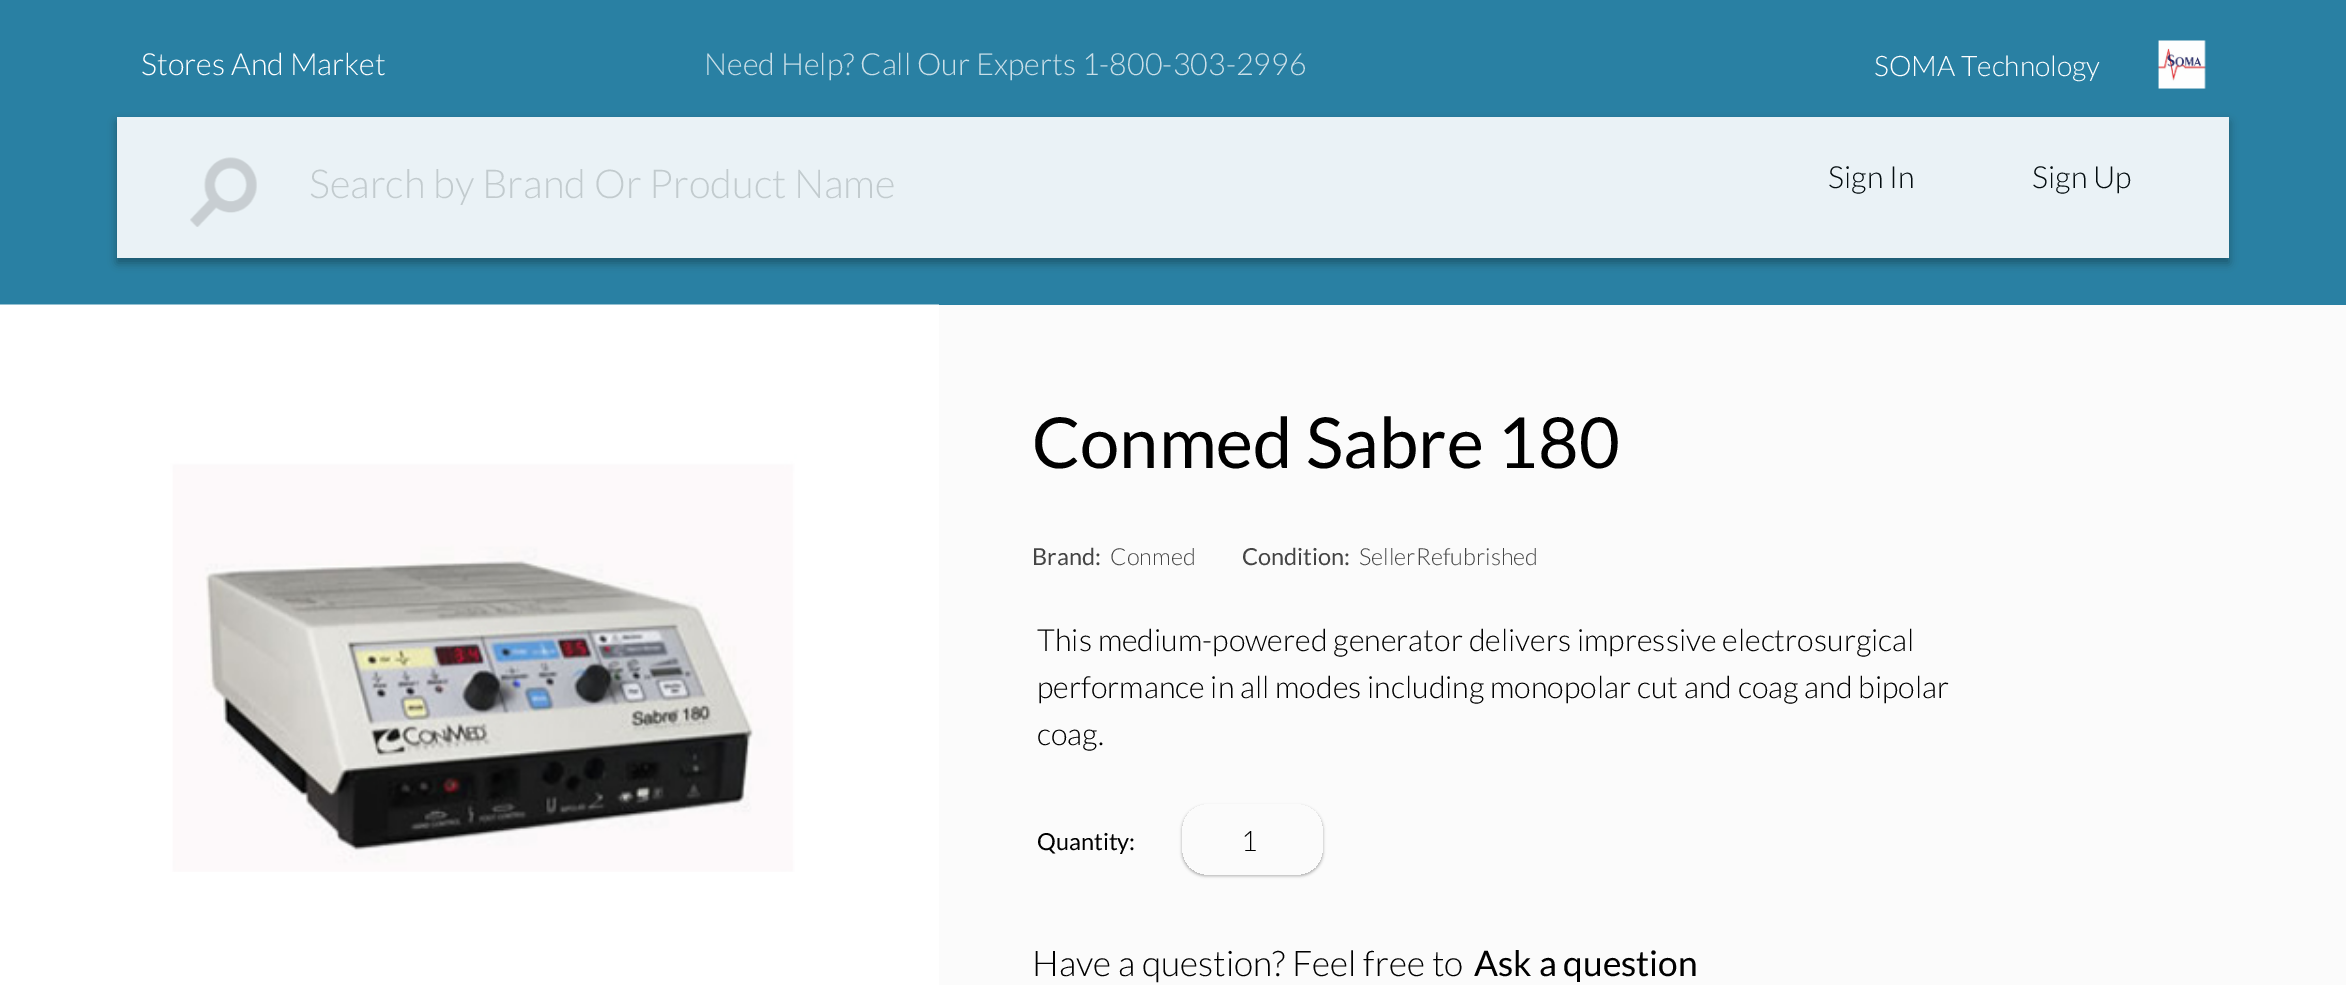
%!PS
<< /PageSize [2346 985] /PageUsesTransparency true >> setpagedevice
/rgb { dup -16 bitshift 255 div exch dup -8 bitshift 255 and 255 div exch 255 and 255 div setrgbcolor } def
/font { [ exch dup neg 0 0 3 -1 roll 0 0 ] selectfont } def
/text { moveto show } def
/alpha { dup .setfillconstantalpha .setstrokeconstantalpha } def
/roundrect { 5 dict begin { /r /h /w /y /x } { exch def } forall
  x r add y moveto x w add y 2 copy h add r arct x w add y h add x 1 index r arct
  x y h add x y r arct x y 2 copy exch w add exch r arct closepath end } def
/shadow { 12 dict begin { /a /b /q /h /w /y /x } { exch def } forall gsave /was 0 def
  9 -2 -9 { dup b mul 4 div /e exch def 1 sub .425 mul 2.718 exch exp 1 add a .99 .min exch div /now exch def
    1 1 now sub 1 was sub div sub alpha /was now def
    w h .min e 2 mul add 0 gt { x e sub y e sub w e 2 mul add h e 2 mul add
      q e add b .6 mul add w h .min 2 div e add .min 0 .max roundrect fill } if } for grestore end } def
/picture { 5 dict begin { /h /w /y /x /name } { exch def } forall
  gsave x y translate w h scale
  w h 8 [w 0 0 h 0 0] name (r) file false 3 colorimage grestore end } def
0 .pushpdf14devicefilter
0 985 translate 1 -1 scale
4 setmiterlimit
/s1 { /Lato-Light 30.5 font 16#FFFFFF rgb } def
/s2 { /Lato-Light 30.5 font 16#CADFE8 rgb } def
/s3 { /Lato-Light 28.25 font 16#FFFFFF rgb } def
/s4 { /Lato-Light 39.9 font 16#C2CBCE rgb } def
/s5 { /Lato-Light 30.5 font 16#040D10 rgb } def
/s6 { /Lato-Regular 70.4 font 16#000000 rgb } def
/s7 { /Lato-Regular 23.5 font 16#454545 rgb } def
/s8 { /Lato-Light 23.5 font 16#454545 rgb } def
/s9 { /Lato-Light 30.5 font 16#000000 rgb } def
/s10 { /Lato-Regular 23.5 font 16#000000 rgb } def
/s11 { /Lato-Light 28.25 font 16#000000 rgb } def
/s12 { /Lato-Light 35.25 font 16#000000 rgb } def
/s13 { /Lato-Regular 35.25 font 16#000000 rgb } def
16#2980A3 rgb
0 0 2346 985 rectfill
s1
(Stores And Market) 141 75 text
s2
(Need Help? Call Our Experts 1-800-303-2996) 704 75 text
s3
(SOMA Technology) 1874 76 text
(pic1.raw) 2158 40 48 49 picture
16#040D10 rgb
117 122 2112 141 0 4.5 0.23 shadow
117 122 2112 141 0 4.5 0.16 shadow
16#EAF2F6 rgb
117 117 2112 141 rectfill
(pic2.raw) 190 157 67 70 picture
s4
(Search by Brand Or Product Name) 309 198 text
s5
(Sign In) 1828 188 text
(Sign Up) 2032 188 text
16#FFFFFF rgb
0 872 939 113 rectfill
(pic3.raw) 0 304 939 568 picture
16#FBFBFB rgb
939 305 1407 680 rectfill
s6
(Conmed Sabre 180) 1032 468 text
s7
(Brand:) 1032 565 text
s8
(Conmed) 1110 565 text
s7
(Condition:) 1242 565 text
s8
(SellerRefubrished) 1359 565 text
s9
(This medium-powered generator delivers impressive electrosurgical) 1037 651 text
(performance in all modes including monopolar cut and coag and bipolar) 1037 698 text
(coag.) 1037 745 text
s10
(Quantity:) 1037 850 text
gsave
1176 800 moveto 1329 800 lineto 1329 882 lineto 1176 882 lineto closepath 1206 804 moveto 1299 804 lineto 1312.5 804 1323 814.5 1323 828 curveto 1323 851 lineto 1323 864.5 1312.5 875 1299 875 curveto 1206 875 lineto 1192.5 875 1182 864.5 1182 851 curveto 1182 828 lineto 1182 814.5 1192.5 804 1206 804 curveto closepath eoclip newpath
1182 806 141 70 24 1.5 0.3 shadow
grestore
s11
(1) 1241 851 text
s12
(Have a question? Feel free to) 1032 976 text
s13
(Ask a question) 1474 976 text
.poppdf14devicefilter showpage
